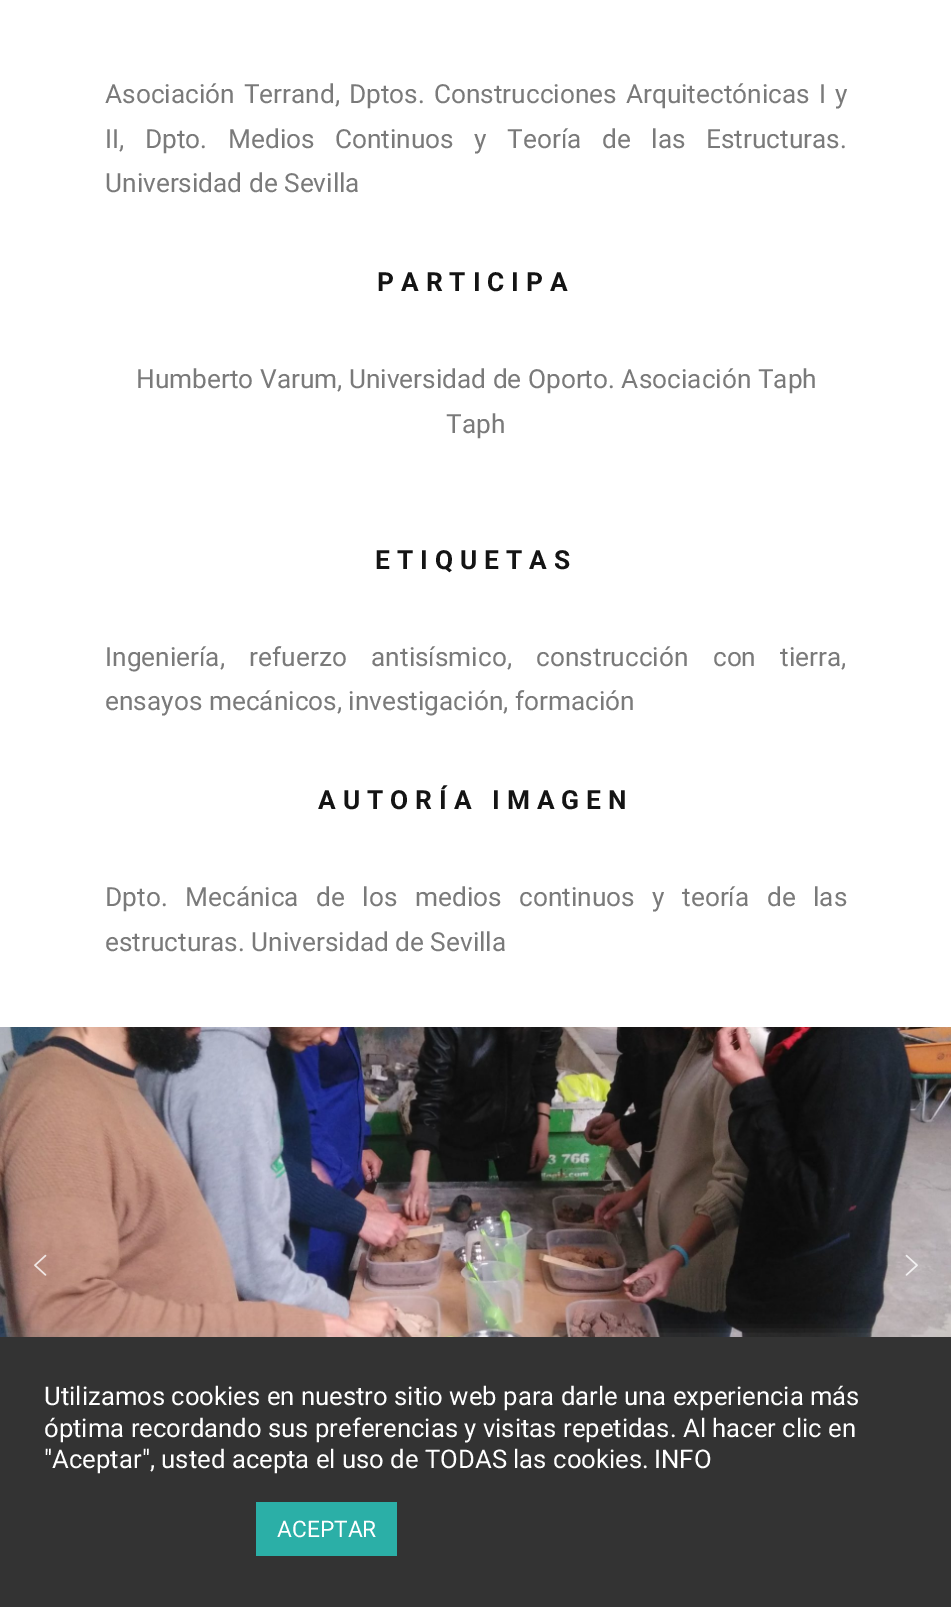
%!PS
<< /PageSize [951 1607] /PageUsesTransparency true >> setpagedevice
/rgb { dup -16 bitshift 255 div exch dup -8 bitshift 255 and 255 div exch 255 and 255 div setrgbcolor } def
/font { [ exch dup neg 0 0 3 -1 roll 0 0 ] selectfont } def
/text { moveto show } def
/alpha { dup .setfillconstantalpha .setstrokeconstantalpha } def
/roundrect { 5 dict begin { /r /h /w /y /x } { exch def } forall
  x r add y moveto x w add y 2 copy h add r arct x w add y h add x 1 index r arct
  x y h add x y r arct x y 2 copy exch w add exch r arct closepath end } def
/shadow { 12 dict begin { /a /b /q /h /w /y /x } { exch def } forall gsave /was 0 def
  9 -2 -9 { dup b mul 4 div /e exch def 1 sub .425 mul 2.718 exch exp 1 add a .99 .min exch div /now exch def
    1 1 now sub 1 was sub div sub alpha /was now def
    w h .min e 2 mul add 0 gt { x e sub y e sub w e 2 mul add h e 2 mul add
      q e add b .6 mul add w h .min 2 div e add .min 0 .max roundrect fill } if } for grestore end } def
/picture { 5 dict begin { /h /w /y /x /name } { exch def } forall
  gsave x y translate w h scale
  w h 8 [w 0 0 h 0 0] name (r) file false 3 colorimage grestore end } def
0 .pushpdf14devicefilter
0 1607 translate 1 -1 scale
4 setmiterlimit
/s1 { /Roboto-Regular 26.25 font 16#7A7A7A rgb } def
/s2 { /Roboto-Regular 25.7 font 16#FFFFFF rgb } def
/s3 { /Roboto-Regular 22.75 font 16#FFFFFF rgb } def
16#FFFFFF rgb
0 0 951 1607 rectfill
/Roboto-Regular 26.25 font
16#7A7A7A rgb
105 103 moveto 2.5 0 32 (Asociación Terrand, Dptos. Construcciones Arquitectónicas I y) widthshow
105 148 moveto 14 0 32 (II, Dpto. Medios Continuos y Teoría de las Estructuras.) widthshow
(Universidad de Sevilla) 105 192 text
/Roboto-Bold 26.25 font
16#141414 rgb
377 291 moveto 7 0 (PARTICIPA) ashow
s1
(Humberto Varum, Universidad de Oporto. Asociación Taph) 136 388 text
(Taph) 446 433 text
/Roboto-Bold 26.25 font
16#141414 rgb
375 569 moveto 7 0 (ETIQUETAS) ashow
/Roboto-Regular 26.25 font
16#7A7A7A rgb
105 666 moveto 18 0 32 (Ingeniería, refuerzo antisísmico, construcción con tierra,) widthshow
(ensayos mecánicos, investigación, formación) 105 710 text
/Roboto-Bold 26.25 font
16#141414 rgb
318 809 moveto 7 0 (AUTORÍA IMAGEN) ashow
/Roboto-Regular 26.25 font
16#7A7A7A rgb
105 906 moveto 11 0 32 (Dpto. Mecánica de los medios continuos y teoría de las) widthshow
(estructuras. Universidad de Sevilla) 105 951 text
(pic1.raw) 0 1027 951 310 picture
(pic2.raw) 34 1254 13 22 picture
(pic3.raw) 905 1254 13 22 picture
16#ACABAB rgb
0 1335 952 272 0 9 0.3 shadow
16#333333 rgb
0 1337 951 270 rectfill
s2
(Utilizamos cookies en nuestro sitio web para darle una experiencia más) 44 1405 text
(óptima recordando sus preferencias y visitas repetidas. Al hacer clic en) 44 1437 text
("Aceptar", usted acepta el uso de TODAS las cookies.) 44 1468 text
(INFO) 654 1468 text
16#2BAFA7 rgb
256 1502 141 54 rectfill
s3
(ACEPTAR) 277 1537 text
.poppdf14devicefilter showpage
